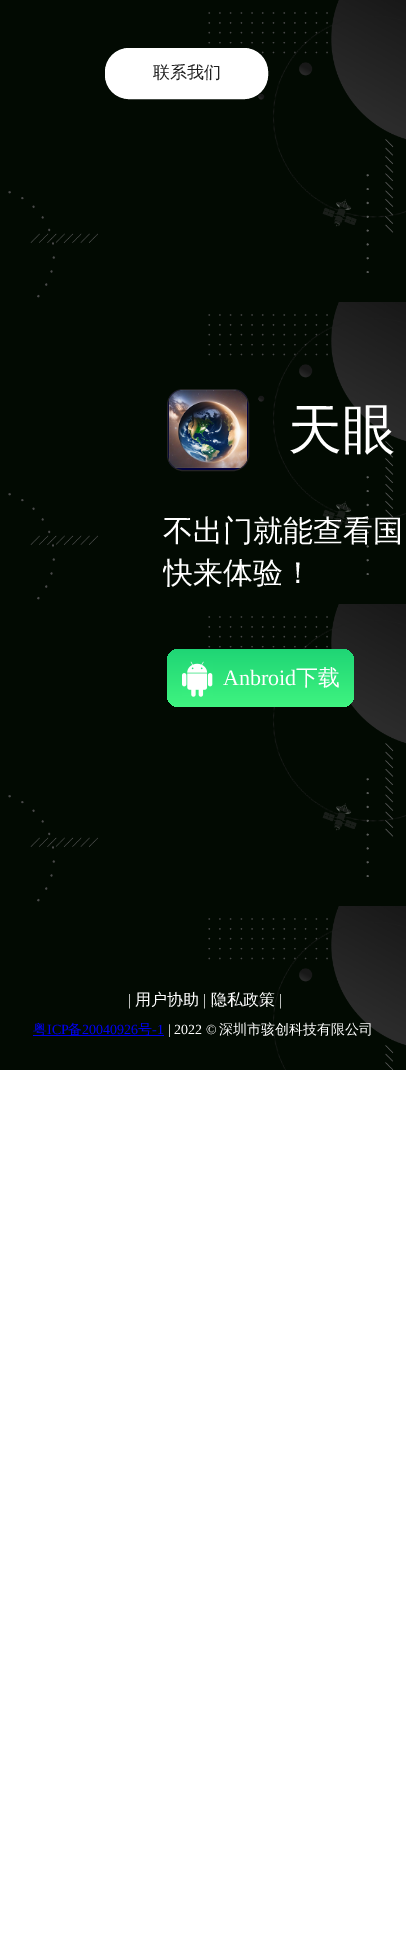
%!PS
<< /PageSize [406 1934] >> setpagedevice
/rgb { dup -16 bitshift 255 div exch dup -8 bitshift 255 and 255 div exch 255 and 255 div setrgbcolor } def
/font { [ exch dup neg 0 0 3 -1 roll 0 0 ] selectfont } def
/text { moveto show } def
/roundrect { 5 dict begin { /r /h /w /y /x } { exch def } forall
  x r add y moveto x w add y 2 copy h add r arct x w add y h add x 1 index r arct
  x y h add x y r arct x y 2 copy exch w add exch r arct closepath end } def
/picture { 5 dict begin { /h /w /y /x /name } { exch def } forall
  gsave x y translate w h scale
  w h 8 [w 0 0 h 0 0] name (r) file false 3 colorimage grestore end } def
0 1934 translate 1 -1 scale
4 setmiterlimit
/s1 { /WenQuanYiZenHei-Medium 17 font 16#202020 rgb } def
/s2 { /WenQuanYiZenHei-Medium 54 font 16#FFFFFF rgb } def
/s3 { /WenQuanYiZenHei-Medium 30 font 16#FFFFFF rgb } def
/s4 { /LiberationSerif-Regular 22 font 16#FFFFFF rgb } def
/s5 { /WenQuanYiZenHei-Medium 22 font 16#FFFFFF rgb } def
/s6 { /LiberationSerif-Regular 16 font 16#FFFFFF rgb } def
/s7 { /WenQuanYiZenHei-Medium 16 font 16#FFFFFF rgb } def
/s8 { /WenQuanYiZenHei-Medium 14 font 16#0000EE rgb } def
/s9 { /LiberationSerif-Regular 14 font 16#0000EE rgb } def
/s10 { /LiberationSerif-Regular 14 font 16#FFFFFF rgb } def
/s11 { /WenQuanYiZenHei-Medium 14 font 16#FFFFFF rgb } def
16#FFFFFF rgb
0 0 406 1934 rectfill
16#020A02 rgb
0 0 406 1070 rectfill
(pic1.raw) 8 0 398 1070 picture
16#FFFFFF rgb
105.5 48.5 162 50 23.5 roundrect gsave fill grestore
stroke
s1
(联系我们) 153 78 text
16#040440 rgb
167.5 389.5 81 81 15.5 roundrect gsave fill grestore
16#242424 rgb
stroke
(pic4.raw) 171 390 74 7 picture
(pic3.raw) 171 390 74 7 picture
(pic2.raw) 169 390 78 78 picture
s2
(天眼) 288 448 text
s3
(不出门就能查看国) 163 541 text
gsave
163 510 243 84 rectclip
(快来体验！) 163 583 text
grestore
gsave 167 649 187 58 12 roundrect clip newpath
<< /ShadingType 2 /ColorSpace /DeviceRGB /Coords [261 649 261 707] /Extend [true true] /Function << /FunctionType 2 /Domain [0 1] /C0 [0.122 0.835 0.459] /C1 [0.247 0.957 0.502] /N 1 >> >> shfill grestore
(pic5.raw) 182 661 31 36 picture
s4
(Anbroid) 223 685 text
s5
(下载) 296 685 text
s6
(|) 128 1005 text
s7
(用户协助) 135 1005 text
s6
(|) 203 1005 text
s7
(隐私政策) 211 1005 text
s6
(|) 279 1005 text
16#0000EE rgb
33 1035 131 1 rectfill
s8
(粤) 33 1034 text
s9
(ICP) 47 1034 text
s8
(备) 68 1034 text
s9
(20040926) 82 1034 text
s8
(号) 138 1034 text
s9
(-1) 152 1034 text
s10
(| 2022 ©) 168 1034 text
s11
(深圳市骇创科技有限公司) 219 1034 text
showpage
